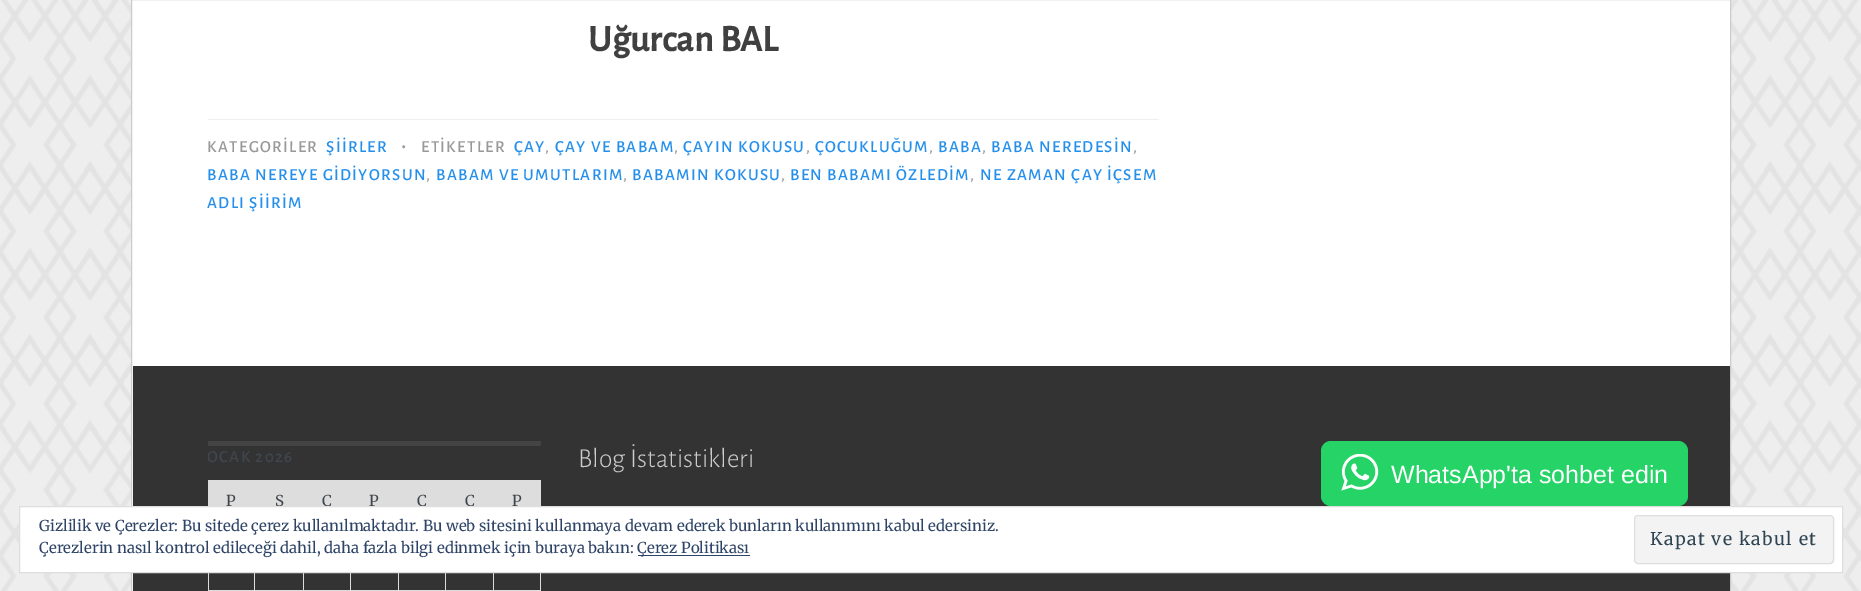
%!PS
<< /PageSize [1861 591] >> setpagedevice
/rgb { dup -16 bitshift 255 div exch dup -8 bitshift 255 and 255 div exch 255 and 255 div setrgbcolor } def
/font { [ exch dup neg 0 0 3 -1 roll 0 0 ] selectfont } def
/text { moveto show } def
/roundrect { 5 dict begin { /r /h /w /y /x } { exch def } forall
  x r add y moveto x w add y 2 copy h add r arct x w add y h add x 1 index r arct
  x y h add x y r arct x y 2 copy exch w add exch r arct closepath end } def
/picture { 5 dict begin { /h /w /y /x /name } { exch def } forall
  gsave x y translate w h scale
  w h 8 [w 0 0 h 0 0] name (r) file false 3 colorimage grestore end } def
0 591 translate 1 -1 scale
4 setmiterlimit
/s1 { /AlegreyaSans-Bold 37.5 font 16#404040 rgb } def
/s2 { /Merriweather-Regular 15 font 16#40464D rgb } def
/s3 { /AlegreyaSans-Light 27.5 font 16#CCCCCC rgb } def
/s4 { /LiberationSans-Regular 25 font 16#FFFFFF rgb } def
/s5 { /Merriweather-Regular 15 font 16#2E4467 rgb } def
16#EEEEEE rgb
0 0 1861 591 rectfill
(pic1.raw) 0 0 1861 591 picture
16#FFFFFF rgb
131.5 -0.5 moveto 1730.5 -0.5 lineto 1730.5 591.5 lineto 131.5 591.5 lineto closepath gsave fill grestore
16#CCCCCC rgb
stroke
s1
(Uğurcan BAL) 588 51 text
16#EFEFEF rgb
208 119 951 1 rectfill
/AlegreyaSans-Medium 16.9 font
16#999999 rgb
207 152 moveto 1.35 0 (KATEGORİLER) ashow
16#2590EC rgb
326 152 moveto 1.35 0 (ŞİİRLER) ashow
/AlegreyaSans-Medium 22 font
16#999999 rgb
401 152 moveto 2 0 (•) ashow
/AlegreyaSans-Medium 16.9 font
421 152 moveto 1.35 0 (ETİKETLER) ashow
16#2590EC rgb
514 152 moveto 1.35 0 (ÇAY) ashow
555 152 moveto 1.35 0 (ÇAY VE BABAM) ashow
683 152 moveto 1.35 0 (ÇAYIN KOKUSU) ashow
815 152 moveto 1.35 0 (ÇOCUKLUĞUM) ashow
938 152 moveto 1.35 0 (BABA) ashow
991 152 moveto 1.35 0 (BABA NEREDESİN) ashow
16#999999 rgb
545 152 moveto 1.35 0 (,) ashow
674 152 moveto 1.35 0 (,) ashow
806 152 moveto 1.35 0 (,) ashow
929 152 moveto 1.35 0 (,) ashow
982 152 moveto 1.35 0 (,) ashow
1133 152 moveto 1.35 0 (,) ashow
16#2590EC rgb
207 180 moveto 1.35 0 (BABA NEREYE GİDİYORSUN) ashow
16#999999 rgb
426 180 moveto 1.35 0 (,) ashow
16#2590EC rgb
436 180 moveto 1.35 0 (BABAM VE UMUTLARIM) ashow
16#999999 rgb
623 180 moveto 1.35 0 (,) ashow
16#2590EC rgb
632 180 moveto 1.35 0 (BABAMIN KOKUSU) ashow
16#999999 rgb
781 180 moveto 1.35 0 (,) ashow
16#2590EC rgb
790 180 moveto 1.35 0 (BEN BABAMI ÖZLEDİM) ashow
16#999999 rgb
970 180 moveto 1.35 0 (,) ashow
16#2590EC rgb
980 180 moveto 1.35 0 (NE ZAMAN ÇAY İÇSEM) ashow
207 208 moveto 1.35 0 (ADLI ŞİİRİM) ashow
16#333333 rgb
133 366 1597 225 rectfill
16#444444 rgb
208 441 333 5 rectfill
gsave
208 441 333 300 rectclip
16#40464D rgb
207 462 moveto 1.35 0 (OCAK 2026) ashow
grestore
16#DDDDDD rgb
208 481 332 25 rectfill
s2
(P) 226 506 text
(S) 275 506 text
(Ç) 322 506 text
(P) 369 506 text
(C) 417 506 text
(C) 465 506 text
16#DDDDDD rgb
208 480 333 1 rectfill
540 480 1 26 rectfill
s2
(P) 512 506 text
16#DDDDDD rgb
208 590 333 1 rectfill
208 573 1 18 rectfill
254 573 1 18 rectfill
303 573 1 18 rectfill
350 573 1 18 rectfill
398 573 1 18 rectfill
445 573 1 18 rectfill
540 573 1 18 rectfill
493 573 1 18 rectfill
s3
(Blog İstatistikleri) 578 467 text
16#25D366 rgb
1321 441 367 65 10 roundrect fill
(pic2.raw) 1341 454 38 37 picture
s4
(WhatsApp'ta sohbet edin) 1391 483 text
19.5 506.5 moveto 1842.5 506.5 lineto 1842.5 572.5 lineto 19.5 572.5 lineto closepath gsave fill grestore
16#DEDEDE rgb
stroke
s5
(Gizlilik ve Çerezler: Bu sitede çerez kullanılmaktadır. Bu web sitesini kullanmaya devam ederek bunların kullanımını kabul edersiniz.) 39 531 text
(Çerezlerin nasıl kontrol edileceği dahil, daha fazla bilgi edinmek için buraya bakın:) 39 553 text
638 555 112 1 rectfill
(Çerez Politikası) 637 553 text
16#F3F3F3 rgb
1634.5 515.5 199 48 3.5 roundrect gsave fill grestore
16#DEDEDE rgb
stroke
/Merriweather-Regular 17.5 font
16#2E4453 rgb
1650 545 moveto 1.4 0 (Kapat ve kabul et) ashow
showpage
